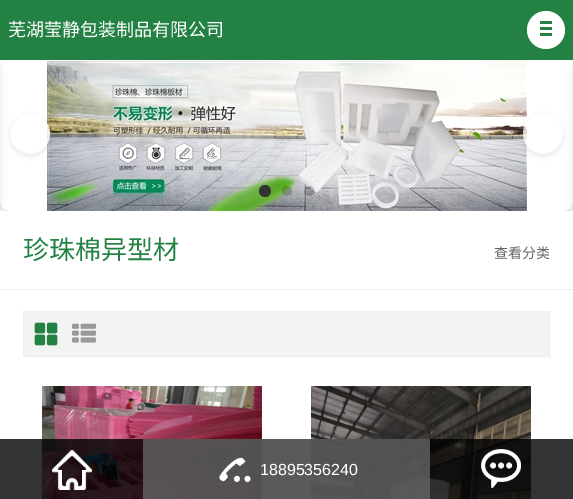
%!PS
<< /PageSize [573 499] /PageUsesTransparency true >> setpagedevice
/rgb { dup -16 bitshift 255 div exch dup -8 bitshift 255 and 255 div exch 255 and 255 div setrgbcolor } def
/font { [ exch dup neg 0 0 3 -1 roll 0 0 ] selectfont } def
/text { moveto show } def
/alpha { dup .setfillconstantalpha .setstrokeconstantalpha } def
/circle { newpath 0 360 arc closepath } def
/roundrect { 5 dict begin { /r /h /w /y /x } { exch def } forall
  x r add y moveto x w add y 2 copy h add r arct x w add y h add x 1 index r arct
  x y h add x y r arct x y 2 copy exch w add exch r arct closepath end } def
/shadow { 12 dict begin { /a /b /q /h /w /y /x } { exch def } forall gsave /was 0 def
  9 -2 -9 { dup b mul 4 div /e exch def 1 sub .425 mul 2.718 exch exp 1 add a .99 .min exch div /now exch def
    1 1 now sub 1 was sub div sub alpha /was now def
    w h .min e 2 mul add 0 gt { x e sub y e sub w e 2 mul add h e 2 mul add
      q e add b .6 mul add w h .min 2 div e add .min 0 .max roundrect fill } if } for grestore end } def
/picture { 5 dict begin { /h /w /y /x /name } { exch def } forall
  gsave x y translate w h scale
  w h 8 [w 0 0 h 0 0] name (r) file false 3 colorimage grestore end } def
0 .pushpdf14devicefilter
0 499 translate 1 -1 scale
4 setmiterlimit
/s1 { /NotoSansCJKSC-Regular 18 font 16#FFFFFF rgb } def
/s2 { /NotoSansCJKSC-Regular 26 font 16#238143 rgb } def
/s3 { /NotoSansCJKSC-Regular 14 font 16#666666 rgb } def
/s4 { /LiberationSans-Regular 16 font 16#FFFFFF rgb } def
16#FFFFFF rgb
0 0 573 499 rectfill
gsave
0 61 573 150 rectclip
16#000000 rgb
-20 65 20 150 8 4 0.1 shadow
grestore
gsave
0 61 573 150 rectclip
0 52 moveto 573 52 lineto 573 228 lineto 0 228 lineto closepath 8 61 moveto 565 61 lineto 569.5 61 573 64.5 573 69 curveto 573 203 lineto 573 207.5 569.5 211 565 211 curveto 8 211 lineto 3.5 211 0 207.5 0 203 curveto 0 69 lineto 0 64.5 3.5 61 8 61 curveto closepath eoclip newpath
16#000000 rgb
0 65 573 150 8 4 0.1 shadow
grestore
gsave
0 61 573 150 rectclip
16#000000 rgb
573 65 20 150 8 4 0.1 shadow
grestore
16#238143 rgb
0 0 573 60 rectfill
s1
(芜湖莹静包装制品有限公司) 8 36 text
546 30 19 circle fill
16#238143 rgb
540 21 12 3 rectfill
540 27 12 3 rectfill
540 33 12 3 rectfill
(pic1.raw) 47 61 480 150 picture
gsave
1 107 moveto 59 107 lineto 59 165 lineto 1 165 lineto closepath 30 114 moveto 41 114 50 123 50 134 curveto 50 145 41 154 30 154 curveto 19 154 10 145 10 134 curveto 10 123 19 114 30 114 curveto closepath eoclip newpath
16#000000 rgb
10 116 40 40 20 2.5 0.1 shadow
grestore
0.8 alpha
16#FFFFFF rgb
30 134 20 circle fill
gsave
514 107 moveto 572 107 lineto 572 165 lineto 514 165 lineto closepath 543 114 moveto 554 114 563 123 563 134 curveto 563 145 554 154 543 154 curveto 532 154 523 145 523 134 curveto 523 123 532 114 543 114 curveto closepath eoclip newpath
1 alpha
16#000000 rgb
523 116 40 40 20 2.5 0.1 shadow
grestore
543 134 20 circle fill
1 alpha
16#333333 rgb
265 191 6 circle fill
0.2 alpha
16#000000 rgb
287 191 5 circle fill
309 191 5 circle fill
1 alpha
16#EEEEEE rgb
0 289 573 1 rectfill
s2
(珍珠棉异型材) 23 259 text
s3
(查看分类) 494 258 text
16#F3F3F3 rgb
23.5 311.5 moveto 549.5 311.5 lineto 549.5 356.5 lineto 23.5 356.5 lineto closepath gsave fill grestore
16#EEEEEE rgb
stroke
(pic2.raw) 34 322 24 24 picture
(pic3.raw) 72 323 24 20 picture
(pic4.raw) 42 386 220 113 picture
(pic5.raw) 311 386 220 113 picture
0.8 alpha
16#000000 rgb
0 439 573 60 rectfill
1 alpha
(pic6.raw) 52 450 40 40 picture
0.8 alpha
16#646464 rgb
143 439 287 60 rectfill
1 alpha
(pic7.raw) 219 457 32 26 picture
s4
(18895356240) 260 475 text
(pic8.raw) 481 449 40 39 picture
.poppdf14devicefilter showpage
